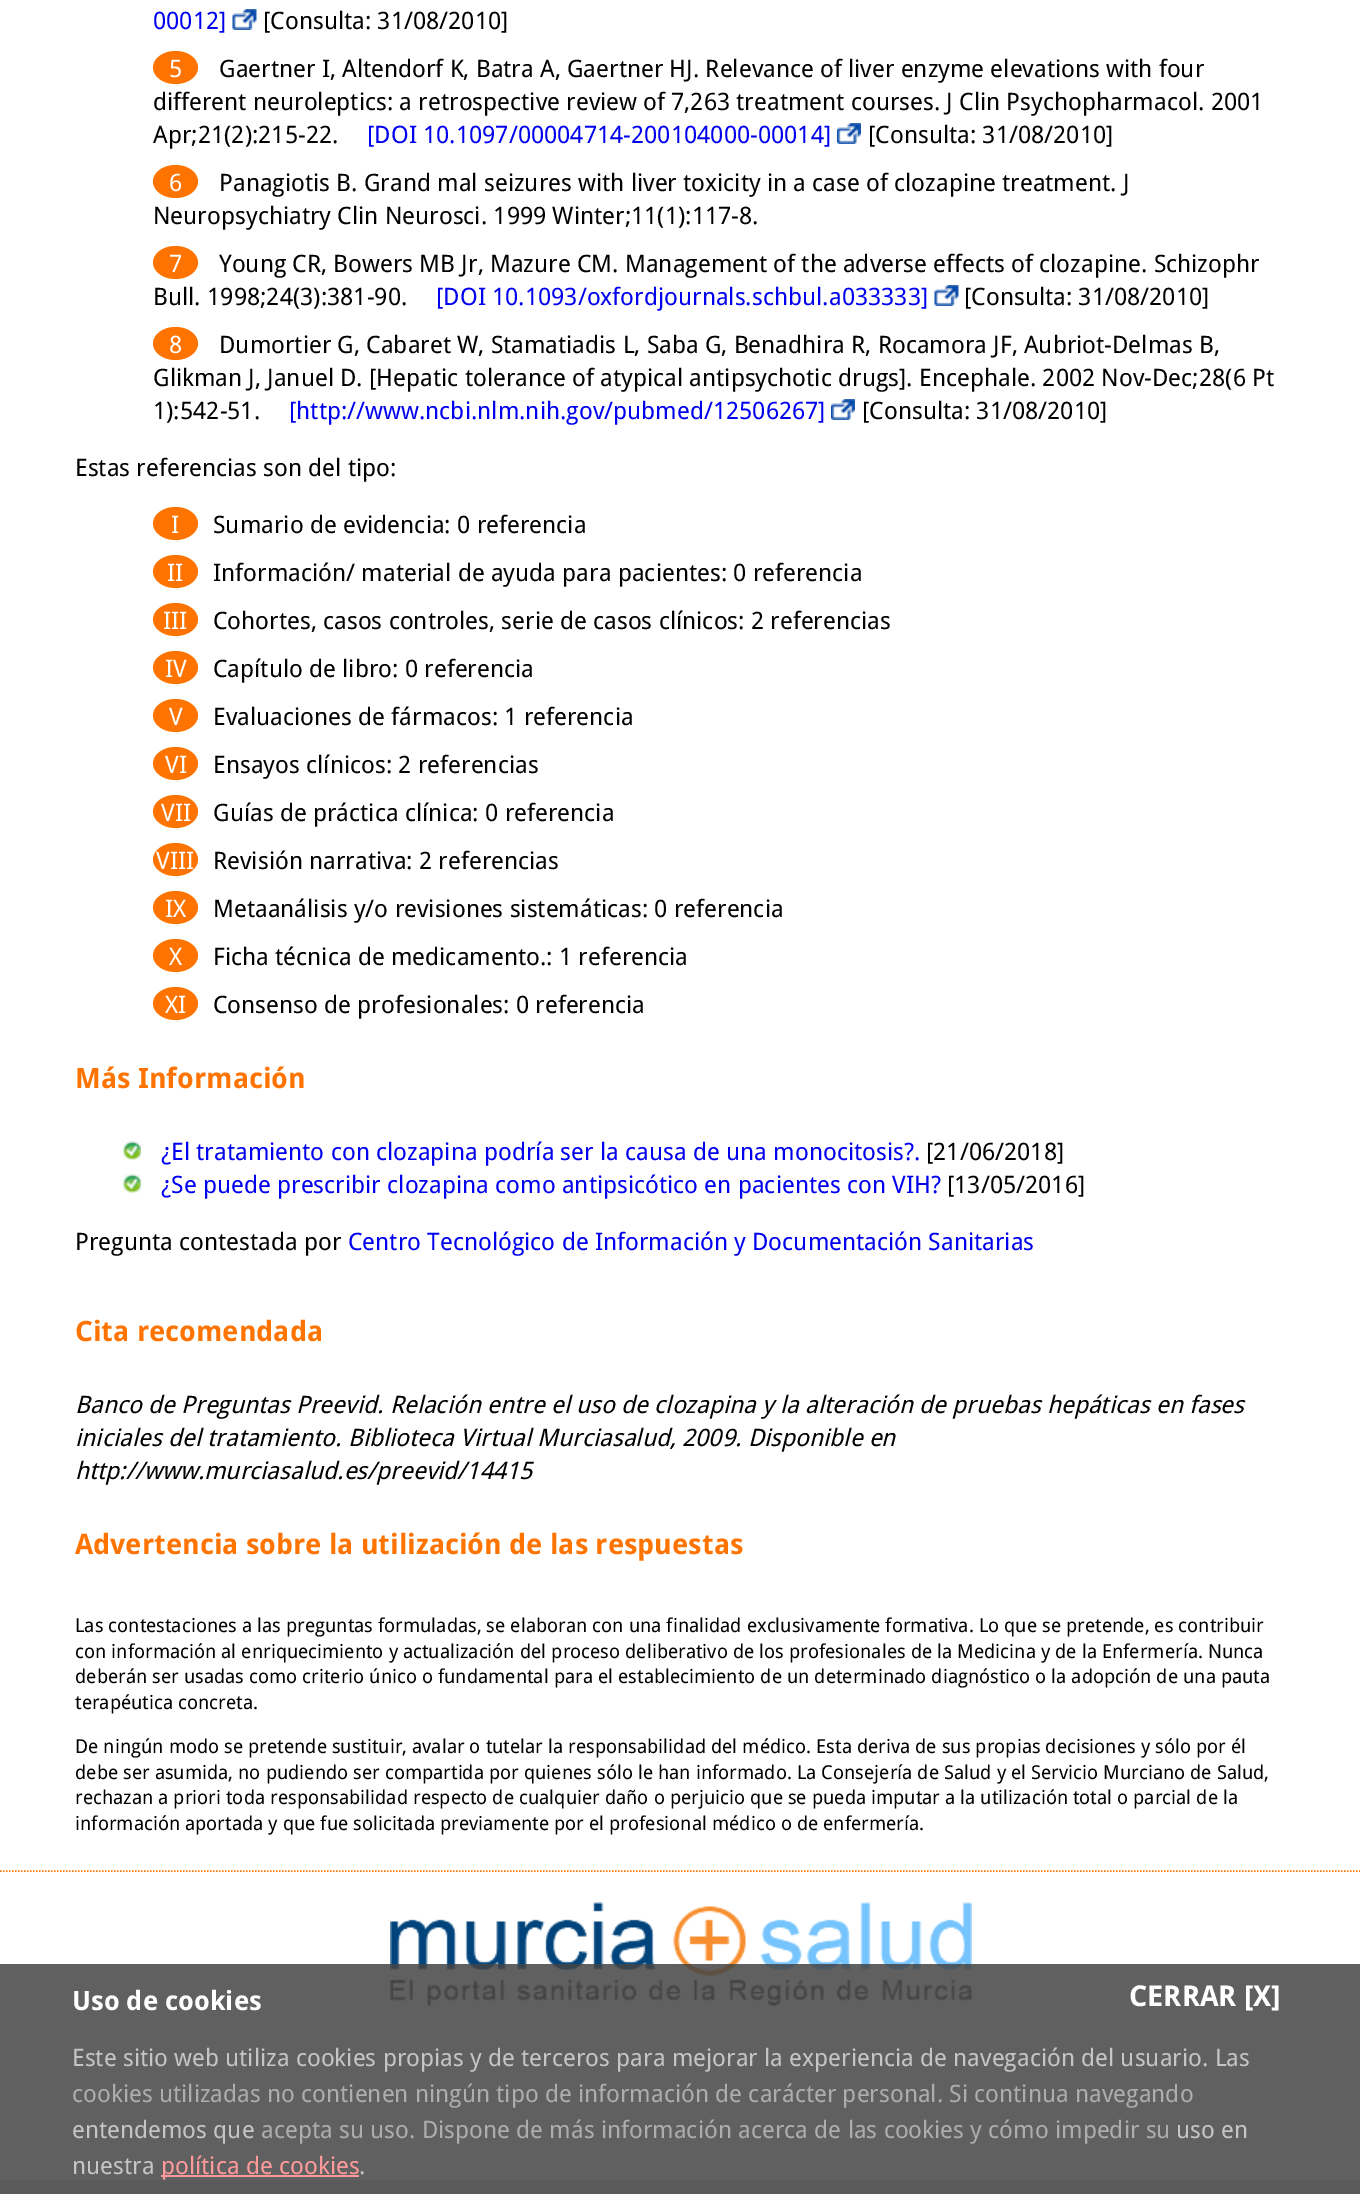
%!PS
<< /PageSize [1360 2194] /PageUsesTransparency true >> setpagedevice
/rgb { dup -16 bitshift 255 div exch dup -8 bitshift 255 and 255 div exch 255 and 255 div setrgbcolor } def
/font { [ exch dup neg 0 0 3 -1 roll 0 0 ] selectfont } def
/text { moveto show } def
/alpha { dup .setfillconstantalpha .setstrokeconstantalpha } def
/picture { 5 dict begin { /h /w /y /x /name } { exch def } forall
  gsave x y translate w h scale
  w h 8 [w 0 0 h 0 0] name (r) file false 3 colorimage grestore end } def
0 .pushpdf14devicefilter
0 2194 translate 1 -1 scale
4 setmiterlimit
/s1 { /DroidSans-Regular 24 font 16#0000EE rgb } def
/s2 { /DroidSans-Regular 24 font 16#000000 rgb } def
/s3 { /DroidSans-Regular 24 font 16#FFFFFF rgb } def
/s4 { /DroidSans-Bold 28.1 font 16#FF7400 rgb } def
/s5 { /DroidSans-Italic 24 font 16#000000 rgb } def
/s6 { /DroidSans-Regular 19.2 font 16#000000 rgb } def
/s7 { /DroidSans-Bold 26.5 font 16#FFFFFF rgb } def
/s8 { /DroidSans-Bold 28.75 font 16#FFFFFF rgb } def
/s9 { /DroidSans-Regular 24 font 16#C5C5C5 rgb } def
/s10 { /DroidSans-Regular 24 font 16#ADADAD rgb } def
/s11 { /DroidSans-Regular 24 font 16#FF9A9A rgb } def
16#DDDDDD rgb
0 0 1360 2194 rectfill
16#FFFFFF rgb
0 0 1360 2180 rectfill
s1
(00012]) 153 29 text
(pic1.raw) 232 9 25 21 picture
s2
([Consulta: 31/08/2010]) 263 29 text
16#FF7400 rgb
175.5 51 moveto 188 51 198 58.5 198 67.5 curveto 198 76.5 188 84 175.5 84 curveto 163 84 153 76.5 153 67.5 curveto 153 58.5 163 51 175.5 51 curveto closepath fill
s3
(5) 169 77 text
s2
(Gaertner I, Altendorf K, Batra A, Gaertner HJ. Relevance of liver enzyme elevations with four) 219 77 text
(different neuroleptics: a retrospective review of 7,263 treatment courses. J Clin Psychopharmacol. 2001) 153 110 text
(Apr;21\(2\):215-22.) 153 143 text
s1
([DOI 10.1097/00004714-200104000-00014]) 367 143 text
(pic2.raw) 837 123 24 21 picture
s2
([Consulta: 31/08/2010]) 868 143 text
16#FF7400 rgb
175.5 165 moveto 188 165 198 172.5 198 181.5 curveto 198 190.5 188 198 175.5 198 curveto 163 198 153 190.5 153 181.5 curveto 153 172.5 163 165 175.5 165 curveto closepath fill
s3
(6) 169 191 text
s2
(Panagiotis B. Grand mal seizures with liver toxicity in a case of clozapine treatment. J) 219 191 text
(Neuropsychiatry Clin Neurosci. 1999 Winter;11\(1\):117-8.) 153 224 text
16#FF7400 rgb
175.5 246 moveto 188 246 198 253.5 198 262.5 curveto 198 271.5 188 279 175.5 279 curveto 163 279 153 271.5 153 262.5 curveto 153 253.5 163 246 175.5 246 curveto closepath fill
s3
(7) 169 272 text
s2
(Young CR, Bowers MB Jr, Mazure CM. Management of the adverse effects of clozapine. Schizophr) 219 272 text
(Bull. 1998;24\(3\):381-90.) 153 305 text
s1
([DOI 10.1093/oxfordjournals.schbul.a033333]) 436 305 text
(pic1.raw) 934 285 25 21 picture
s2
([Consulta: 31/08/2010]) 964 305 text
16#FF7400 rgb
175.5 327 moveto 188 327 198 334.5 198 343.5 curveto 198 352.5 188 360 175.5 360 curveto 163 360 153 352.5 153 343.5 curveto 153 334.5 163 327 175.5 327 curveto closepath fill
s3
(8) 169 353 text
s2
(Dumortier G, Cabaret W, Stamatiadis L, Saba G, Benadhira R, Rocamora JF, Aubriot-Delmas B,) 219 353 text
(Glikman J, Januel D. [Hepatic tolerance of atypical antipsychotic drugs]. Encephale. 2002 Nov-Dec;28\(6 Pt) 153 386 text
(1\):542-51.) 153 419 text
s1
([http://www.ncbi.nlm.nih.gov/pubmed/12506267]) 289 419 text
(pic2.raw) 831 399 24 21 picture
s2
([Consulta: 31/08/2010]) 862 419 text
(Estas referencias son del tipo:) 75 476 text
16#FF7400 rgb
175.5 507 moveto 188 507 198 514.5 198 523.5 curveto 198 532.5 188 540 175.5 540 curveto 163 540 153 532.5 153 523.5 curveto 153 514.5 163 507 175.5 507 curveto closepath fill
s3
(I) 171 533 text
s2
(Sumario de evidencia: 0 referencia) 213 533 text
16#FF7400 rgb
175.5 555 moveto 188 555 198 562.5 198 571.5 curveto 198 580.5 188 588 175.5 588 curveto 163 588 153 580.5 153 571.5 curveto 153 562.5 163 555 175.5 555 curveto closepath fill
s3
(II) 167 581 text
s2
(Información/ material de ayuda para pacientes: 0 referencia) 213 581 text
16#FF7400 rgb
175.5 603 moveto 188 603 198 610.5 198 619.5 curveto 198 628.5 188 636 175.5 636 curveto 163 636 153 628.5 153 619.5 curveto 153 610.5 163 603 175.5 603 curveto closepath fill
s3
(III) 163 629 text
s2
(Cohortes, casos controles, serie de casos clínicos: 2 referencias) 213 629 text
16#FF7400 rgb
175.5 651 moveto 188 651 198 658.5 198 667.5 curveto 198 676.5 188 684 175.5 684 curveto 163 684 153 676.5 153 667.5 curveto 153 658.5 163 651 175.5 651 curveto closepath fill
s3
(IV) 165 677 text
s2
(Capítulo de libro: 0 referencia) 213 677 text
16#FF7400 rgb
175.5 699 moveto 188 699 198 706.5 198 715.5 curveto 198 724.5 188 732 175.5 732 curveto 163 732 153 724.5 153 715.5 curveto 153 706.5 163 699 175.5 699 curveto closepath fill
s3
(V) 169 725 text
s2
(Evaluaciones de fármacos: 1 referencia) 213 725 text
16#FF7400 rgb
175.5 747 moveto 188 747 198 754.5 198 763.5 curveto 198 772.5 188 780 175.5 780 curveto 163 780 153 772.5 153 763.5 curveto 153 754.5 163 747 175.5 747 curveto closepath fill
s3
(VI) 165 773 text
s2
(Ensayos clínicos: 2 referencias) 213 773 text
16#FF7400 rgb
175.5 795 moveto 188 795 198 802.5 198 811.5 curveto 198 820.5 188 828 175.5 828 curveto 163 828 153 820.5 153 811.5 curveto 153 802.5 163 795 175.5 795 curveto closepath fill
s3
(VII) 161 821 text
s2
(Guías de práctica clínica: 0 referencia) 213 821 text
16#FF7400 rgb
175.5 843 moveto 188 843 198 850.5 198 859.5 curveto 198 868.5 188 876 175.5 876 curveto 163 876 153 868.5 153 859.5 curveto 153 850.5 163 843 175.5 843 curveto closepath fill
s3
(VIII) 156 869 text
s2
(Revisión narrativa: 2 referencias) 213 869 text
16#FF7400 rgb
175.5 891 moveto 188 891 198 898.5 198 907.5 curveto 198 916.5 188 924 175.5 924 curveto 163 924 153 916.5 153 907.5 curveto 153 898.5 163 891 175.5 891 curveto closepath fill
s3
(IX) 165 917 text
s2
(Metaanálisis y/o revisiones sistemáticas: 0 referencia) 213 917 text
16#FF7400 rgb
175.5 939 moveto 188 939 198 946.5 198 955.5 curveto 198 964.5 188 972 175.5 972 curveto 163 972 153 964.5 153 955.5 curveto 153 946.5 163 939 175.5 939 curveto closepath fill
s3
(X) 169 965 text
s2
(Ficha técnica de medicamento.: 1 referencia) 213 965 text
16#FF7400 rgb
175.5 987 moveto 188 987 198 994.5 198 1003.5 curveto 198 1012.5 188 1020 175.5 1020 curveto 163 1020 153 1012.5 153 1003.5 curveto 153 994.5 163 987 175.5 987 curveto closepath fill
s3
(XI) 165 1013 text
s2
(Consenso de profesionales: 0 referencia) 213 1013 text
s4
(Más Información) 75 1088 text
(pic3.raw) 123 1141 18 19 picture
s1
(¿El tratamiento con clozapina podría ser la causa de una monocitosis?.) 161 1160 text
s2
([21/06/2018]) 926 1160 text
(pic3.raw) 123 1174 18 19 picture
s1
(¿Se puede prescribir clozapina como antipsicótico en pacientes con VIH?) 161 1193 text
s2
([13/05/2016]) 947 1193 text
(Pregunta contestada por) 75 1250 text
s1
(Centro Tecnológico de Información y Documentación Sanitarias) 348 1250 text
s4
(Cita recomendada) 75 1341 text
s5
(Banco de Preguntas Preevid. Relación entre el uso de clozapina y la alteración de pruebas hepáticas en fases) 75 1413 text
(iniciales del tratamiento. Biblioteca Virtual Murciasalud, 2009. Disponible en) 75 1446 text
(http://www.murciasalud.es/preevid/14415) 75 1479 text
s4
(Advertencia sobre la utilización de las respuestas) 75 1554 text
s6
(Las contestaciones a las preguntas formuladas, se elaboran con una finalidad exclusivamente formativa. Lo que se pretende, es contribuir) 75 1632 text
(con información al enriquecimiento y actualización del proceso deliberativo de los profesionales de la Medicina y de la Enfermería. Nunca) 75 1658 text
(deberán ser usadas como criterio único o fundamental para el establecimiento de un determinado diagnóstico o la adopción de una pauta) 75 1683 text
(terapéutica concreta.) 75 1709 text
(De ningún modo se pretende sustituir, avalar o tutelar la responsabilidad del médico. Esta deriva de sus propias decisiones y sólo por él) 75 1753 text
(debe ser asumida, no pudiendo ser compartida por quienes sólo le han informado. La Consejería de Salud y el Servicio Murciano de Salud,) 75 1779 text
(rechazan a priori toda responsabilidad respecto de cualquier daño o perjuicio que se pueda imputar a la utilización total o parcial de la) 75 1804 text
(información aportada y que fue solicitada previamente por el profesional médico o de enfermería.) 75 1830 text
16#FF7400 rgb
1.5 setlinewidth
[1.5 1.5] 0 setdash
0 1871 moveto 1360.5 1871 lineto stroke
(pic4.raw) 390 1902 582 104 picture
0.85 alpha
16#444444 rgb
0 1964 1360 230 rectfill
1 alpha
s7
(Uso de cookies) 72 2010 text
s8
(CERRAR [X]) 1129 2006 text
s9
(Este sitio web utiliza cookies propias y de terceros para mejorar la experiencia de navegación del usuario. Las) 72 2066 text
s10
(cookies utilizadas no contienen ningún tipo de información de carácter personal. Si continua navegando) 72 2102 text
s9
(entendemos que) 72 2138 text
s10
(acepta su uso. Dispone de más información acerca de las cookies y cómo impedir su) 261 2138 text
s9
(uso en) 1176 2138 text
(nuestra) 72 2174 text
16#FF9A9A rgb
161 2175 198 2 rectfill
(política de cookies) 161 2174 text
s9
(.) 359 2174 text
.poppdf14devicefilter showpage
